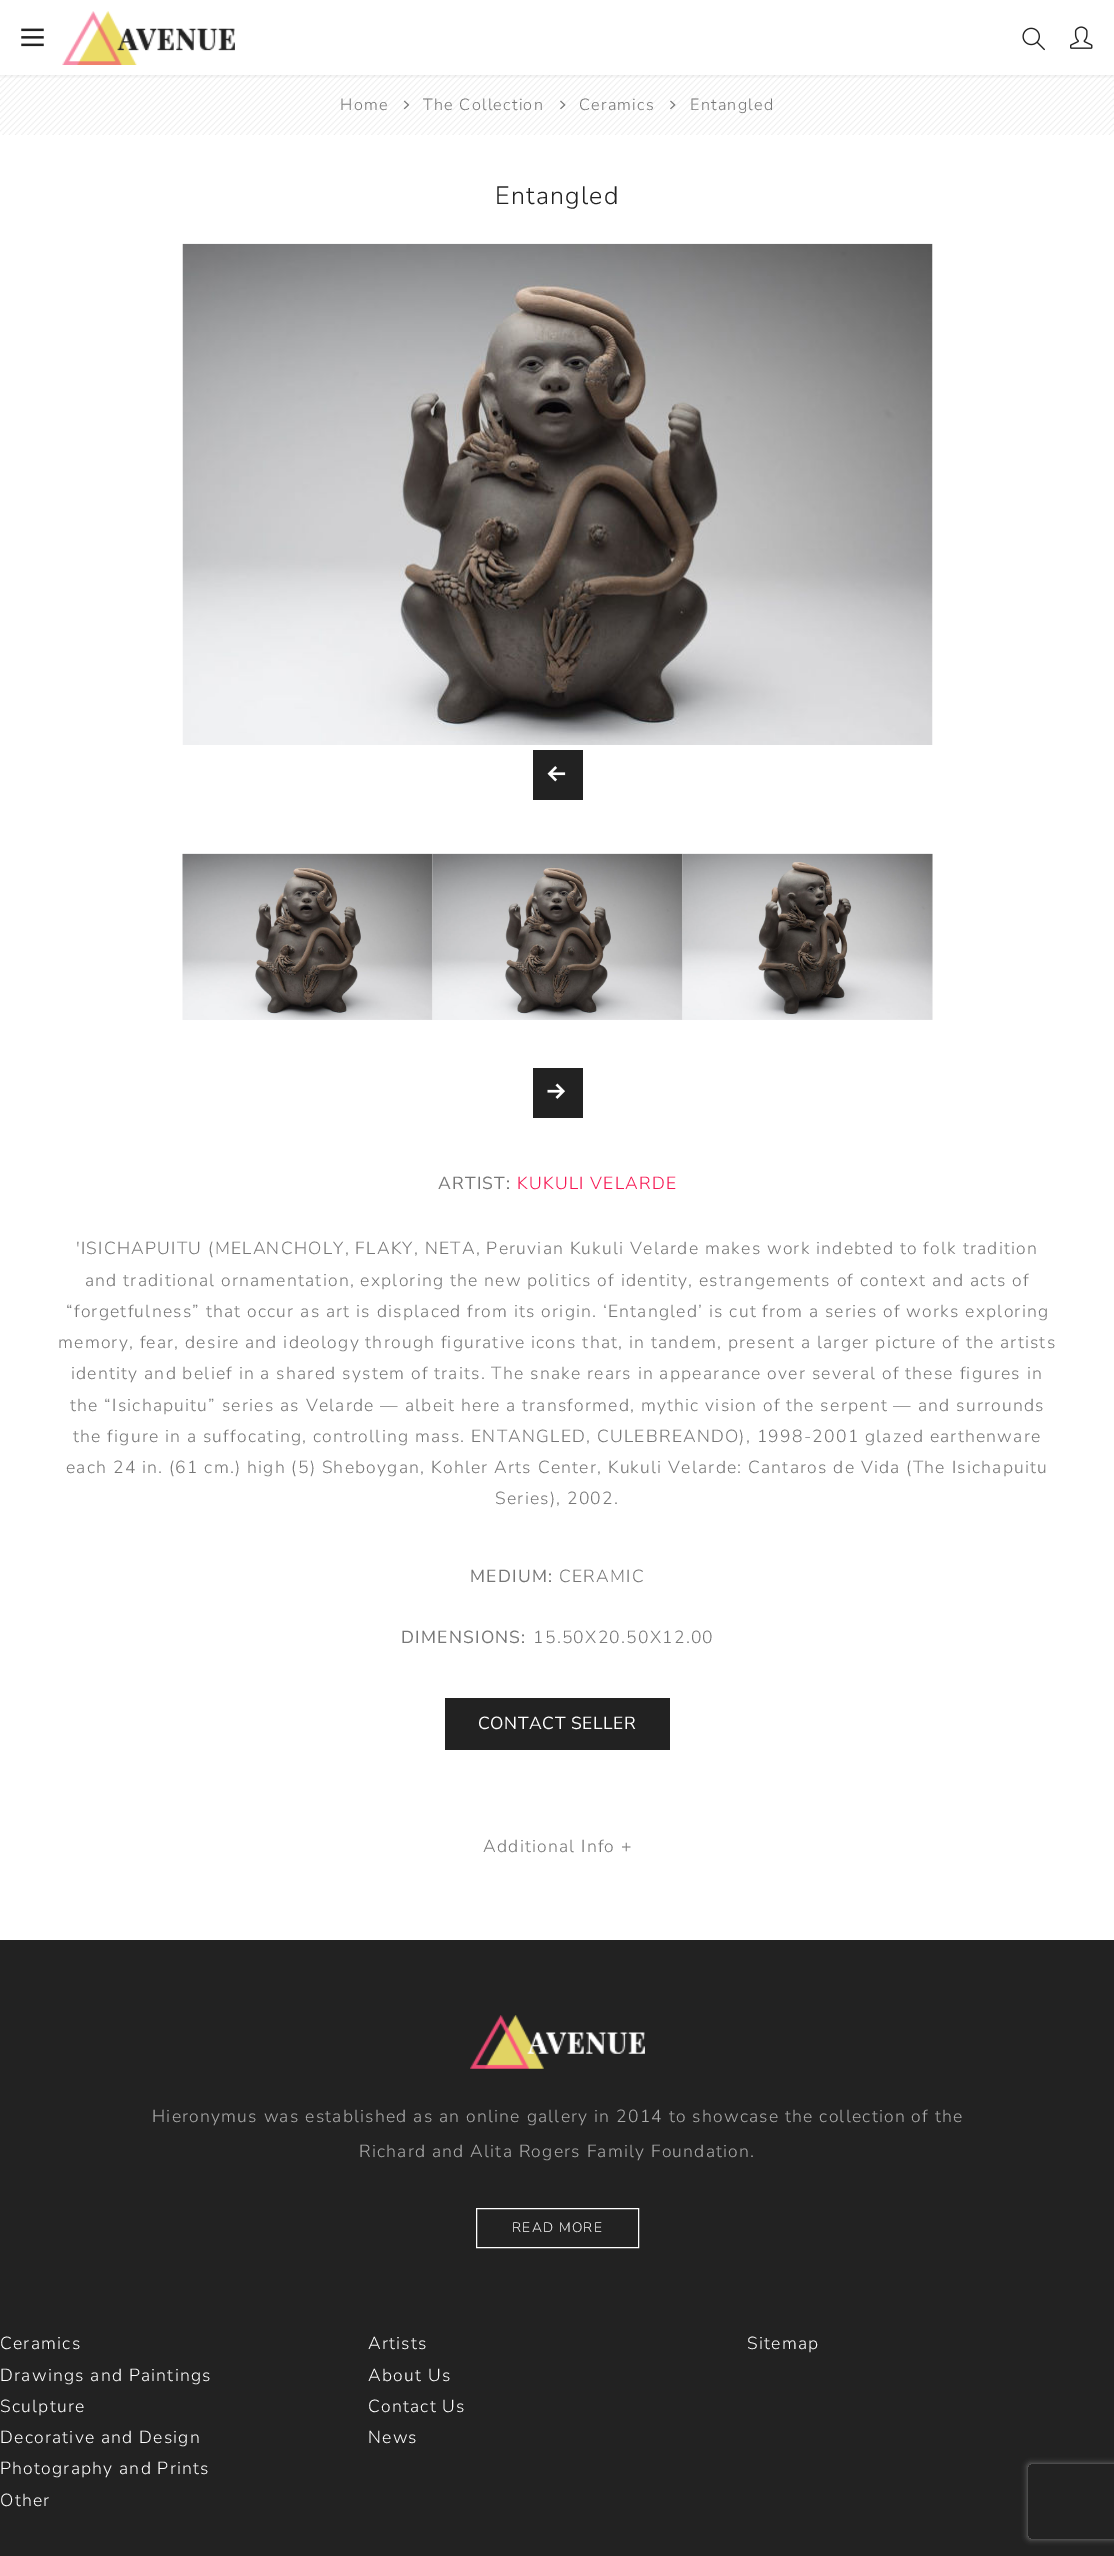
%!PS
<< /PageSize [1114 2556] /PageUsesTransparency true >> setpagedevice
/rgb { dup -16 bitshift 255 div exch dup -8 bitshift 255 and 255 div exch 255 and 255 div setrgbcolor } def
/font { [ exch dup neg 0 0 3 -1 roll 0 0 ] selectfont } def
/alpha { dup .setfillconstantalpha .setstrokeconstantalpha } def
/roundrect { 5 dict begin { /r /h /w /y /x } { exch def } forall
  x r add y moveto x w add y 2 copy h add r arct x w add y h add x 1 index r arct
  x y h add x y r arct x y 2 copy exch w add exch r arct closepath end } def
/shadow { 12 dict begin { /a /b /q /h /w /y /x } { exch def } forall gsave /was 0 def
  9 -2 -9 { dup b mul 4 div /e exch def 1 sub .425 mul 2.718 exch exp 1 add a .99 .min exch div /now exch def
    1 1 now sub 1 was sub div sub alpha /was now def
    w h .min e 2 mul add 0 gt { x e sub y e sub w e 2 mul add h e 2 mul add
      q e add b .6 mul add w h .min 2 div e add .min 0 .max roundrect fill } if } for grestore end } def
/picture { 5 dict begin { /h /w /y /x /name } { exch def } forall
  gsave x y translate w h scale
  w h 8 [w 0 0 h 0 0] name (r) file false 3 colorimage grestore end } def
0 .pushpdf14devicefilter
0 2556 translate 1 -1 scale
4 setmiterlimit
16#FFFFFF rgb
0 0 1114 2556 rectfill
(pic5.raw) 0 75 1114 60 picture
gsave
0 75 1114 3 rectclip
16#000000 rgb
0 0 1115 75 0 3 0.1 shadow
grestore
(pic1.raw) 21 28 23 19 picture
(pic2.raw) 62 11 173 54 picture
(pic3.raw) 1022 27 23 24 picture
(pic4.raw) 1070 26 23 23 picture
/NunitoSans-Light 16.25 font
16#777777 rgb
340 110 moveto 1.25 0 (Home) ashow
(pic6.raw) 403 100 7 10 picture
423 110 moveto 1.25 0 (The Collection) ashow
(pic7.raw) 560 100 6 10 picture
579 110 moveto 1.25 0 (Ceramics) ashow
(pic8.raw) 670 100 6 10 picture
690 110 moveto 1.25 0 (Entangled) ashow
/NunitoSans-Light 25 font
16#222222 rgb
495 204 moveto 1.25 0 (Entangled) ashow
/NunitoSans-Regular 17.5 font
16#777777 rgb
438 1189 moveto 1.25 0 (ARTIST:) ashow
/NunitoSans-Light 17.5 font
16#F61853 rgb
517 1189 moveto 1.25 0 (KUKULI VELARDE) ashow
16#777777 rgb
76 1254 moveto 1.25 0 ('ISICHAPUITU \(MELANCHOLY, FLAKY, NETA, Peruvian Kukuli Velarde makes work indebted to folk tradition) ashow
85 1286 moveto 1.25 0 (and traditional ornamentation, exploring the new politics of identity, estrangements of context and acts of) ashow
66 1317 moveto 1.25 0 (“forgetfulness” that occur as art is displaced from its origin. ‘Entangled’ is cut from a series of works exploring) ashow
58 1348 moveto 1.25 0 (memory, fear, desire and ideology through figurative icons that, in tandem, present a larger picture of the artists) ashow
71 1379 moveto 1.25 0 (identity and belief in a shared system of traits. The snake rears in appearance over several of these figures in) ashow
70 1411 moveto 1.25 0 (the “Isichapuitu” series as Velarde — albeit here a transformed, mythic vision of the serpent — and surrounds) ashow
73 1442 moveto 1.25 0 (the figure in a suffocating, controlling mass. ENTANGLED, CULEBREANDO\), 1998-2001 glazed earthenware) ashow
66 1473 moveto 1.25 0 (each 24 in. \(61 cm.\) high \(5\) Sheboygan, Kohler Arts Center, Kukuli Velarde: Cantaros de Vida \(The Isichapuitu) ashow
495 1504 moveto 1.25 0 (Series\), 2002.) ashow
/NunitoSans-Regular 17.5 font
470 1582 moveto 1.25 0 (MEDIUM:) ashow
/NunitoSans-Light 17.5 font
559 1582 moveto 1.25 0 (CERAMIC) ashow
/NunitoSans-Regular 17.5 font
401 1643 moveto 1.25 0 (DIMENSIONS:) ashow
/NunitoSans-Light 17.5 font
533 1643 moveto 1.25 0 (15.50X20.50X12.00) ashow
16#222222 rgb
445 1698 225 52 rectfill
/NunitoSans-Regular 17.5 font
16#FFFFFF rgb
478 1729 moveto 0.6 0 (CONTACT SELLER) ashow
(pic9.raw) 182 243 751 502 picture
16#222222 rgb
533 750 50 50 rectfill
(pic10.raw) 547 766 19 16 picture
(pic11.raw) 182 853 251 167 picture
(pic12.raw) 432 853 251 167 picture
(pic13.raw) 682 853 251 167 picture
533 1068 50 50 rectfill
(pic14.raw) 547 1083 18 16 picture
/NunitoSans-Light 17.5 font
16#777777 rgb
483 1852 moveto 1.25 0 (Additional Info +) ashow
16#222222 rgb
0 1940 1114 616 rectfill
(pic15.raw) 470 2015 175 54 picture
16#A9A9A9 rgb
152 2122 moveto 1.25 0 (Hieronymus was established as an online gallery in 2014 to showcase the collection of the) ashow
359 2157 moveto 1.25 0 (Richard and Alita Rogers Family Foundation.) ashow
16#FFFFFF rgb
476.5 2208.5 162 39 rectstroke
/NunitoSans-Light 13.75 font
512 2232 moveto 1.25 0 (READ MORE) ashow
/NunitoSans-Light 17.5 font
0 2349 moveto 1.25 0 (Ceramics) ashow
0 2381 moveto 1.25 0 (Drawings and Paintings) ashow
0 2412 moveto 1.25 0 (Sculpture) ashow
0 2443 moveto 1.25 0 (Decorative and Design) ashow
0 2474 moveto 1.25 0 (Photography and Prints) ashow
0 2506 moveto 1.25 0 (Other) ashow
368 2349 moveto 1.25 0 (Artists) ashow
368 2381 moveto 1.25 0 (About Us) ashow
368 2412 moveto 1.25 0 (Contact Us) ashow
368 2443 moveto 1.25 0 (News) ashow
747 2349 moveto 1.25 0 (Sitemap) ashow
gsave
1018 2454 moveto 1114 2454 lineto 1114 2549 lineto 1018 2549 lineto closepath 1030.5 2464 moveto 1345.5 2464 lineto 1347 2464 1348 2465 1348 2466.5 curveto 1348 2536.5 lineto 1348 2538 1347 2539 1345.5 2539 curveto 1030.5 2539 lineto 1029 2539 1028 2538 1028 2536.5 curveto 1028 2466.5 lineto 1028 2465 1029 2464 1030.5 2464 curveto closepath eoclip newpath
16#808080 rgb
1028 2464 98 75 2.5 3 1 shadow
grestore
.poppdf14devicefilter showpage
